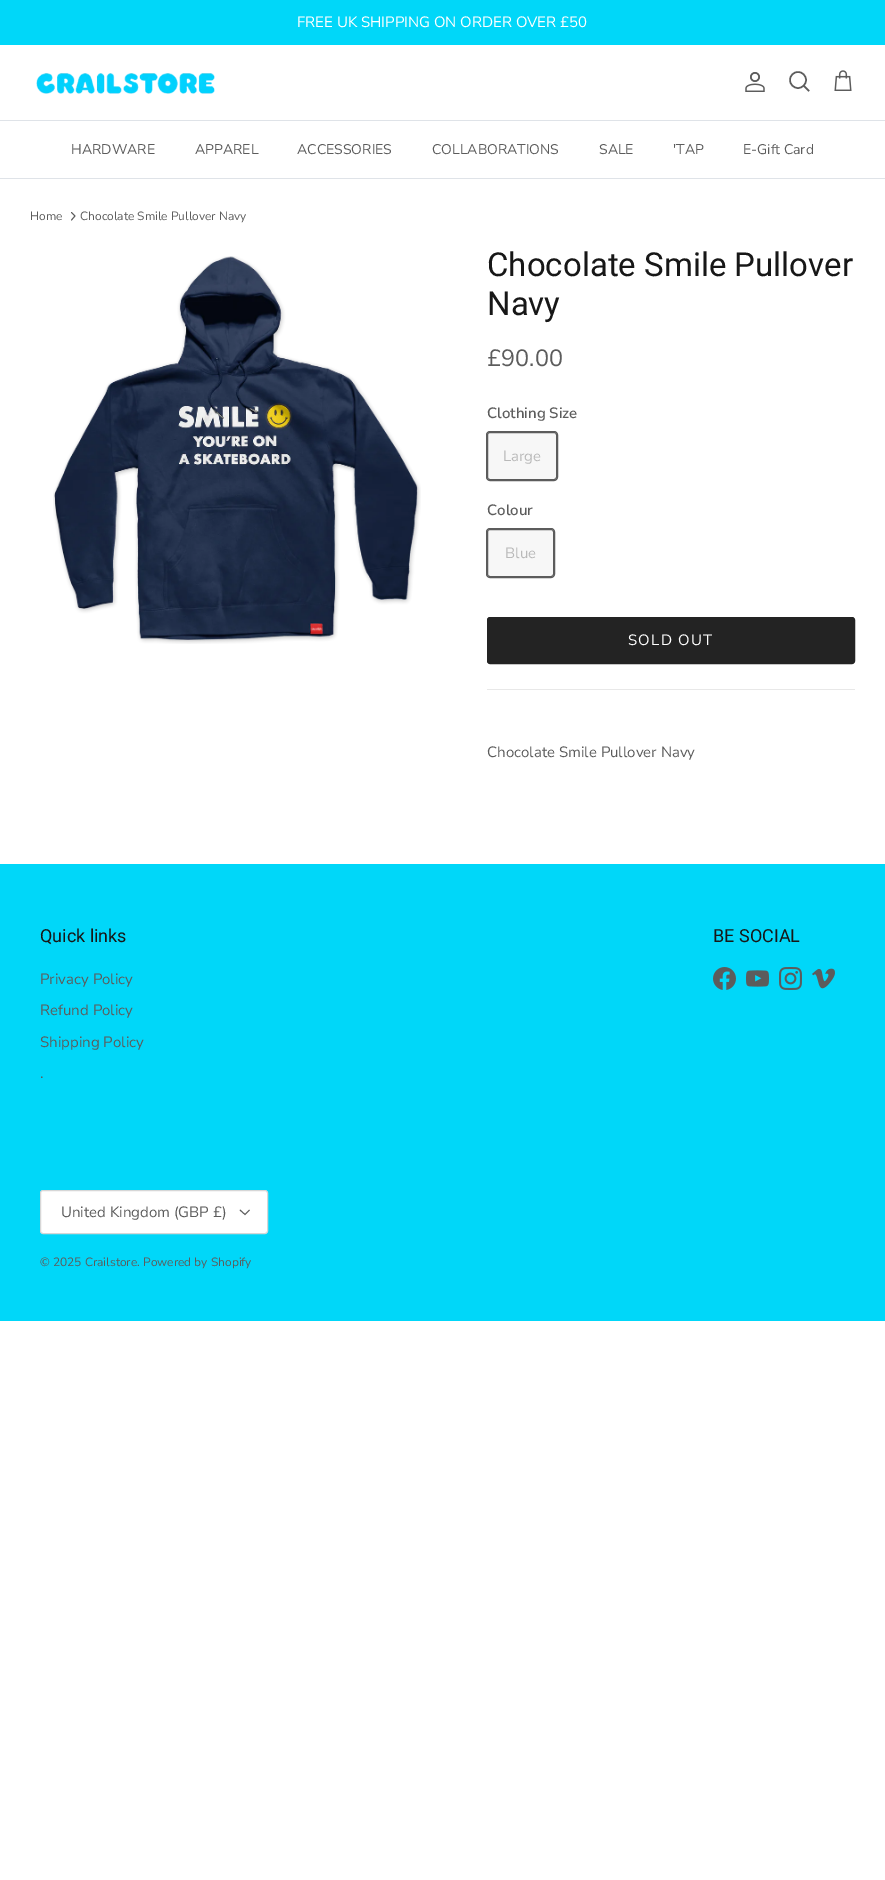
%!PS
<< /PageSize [885 1880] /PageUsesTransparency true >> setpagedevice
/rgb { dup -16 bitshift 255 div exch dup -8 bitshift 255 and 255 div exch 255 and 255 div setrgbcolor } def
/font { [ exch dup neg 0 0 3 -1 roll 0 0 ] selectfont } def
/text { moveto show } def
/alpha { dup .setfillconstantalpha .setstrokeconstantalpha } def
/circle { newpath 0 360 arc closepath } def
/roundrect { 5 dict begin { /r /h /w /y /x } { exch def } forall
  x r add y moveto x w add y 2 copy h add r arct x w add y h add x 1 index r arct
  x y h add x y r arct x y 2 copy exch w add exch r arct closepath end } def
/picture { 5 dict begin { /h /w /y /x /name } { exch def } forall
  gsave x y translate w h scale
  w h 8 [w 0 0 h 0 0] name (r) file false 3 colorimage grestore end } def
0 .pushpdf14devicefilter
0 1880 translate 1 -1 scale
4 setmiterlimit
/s1 { /NunitoSans-Regular 15 font 16#FFFFFF rgb } def
/s2 { /NunitoSans-Regular 14 font 16#5C5C5C rgb } def
/s3 { /NunitoSans-Regular 12 font 16#5C5C5C rgb } def
/s4 { /Roboto-Regular 33 font 16#171717 rgb } def
/s5 { /NunitoSans-Regular 23.5 font 16#5C5C5C rgb } def
/s6 { /NunitoSans-SemiBold 15 font 16#5C5C5C rgb } def
/s7 { /NunitoSans-Regular 15 font 16#B9B9B9 rgb } def
/s8 { /NunitoSans-Regular 15 font 16#5C5C5C rgb } def
/s9 { /Roboto-Regular 18 font 16#171717 rgb } def
16#FFFFFF rgb
0 0 885 1880 rectfill
16#00D7F9 rgb
0 0 885 45 rectfill
s1
(FREE UK SHIPPING ON ORDER OVER £50) 297 27 text
16#DFE3E8 rgb
0 120 885 1 rectfill
(pic1.raw) 36 73 179 21 picture
(pic2.raw) 745 72 20 20 picture
16#5C5C5C rgb
1.5 setlinewidth
798 80 8 circle stroke
2 setlinecap
804 86 moveto 808.5 90.5 lineto stroke
(pic3.raw) 834 70 18 21 picture
16#DFE3E8 rgb
0 178 885 1 rectfill
s2
(HARDWARE) 71 154 text
(APPAREL) 195 154 text
(ACCESSORIES) 297 154 text
(COLLABORATIONS) 432 154 text
(SALE) 599 154 text
('TAP) 673 154 text
(E-Gift Card) 743 154 text
s3
(Home) 30 220 text
0.9 setlinewidth
1 setlinecap
1 setlinejoin
71.5 220 moveto 75 216 lineto 71.5 212.5 lineto stroke
(Chocolate Smile Pullover Navy) 80 220 text
(pic4.raw) 53 256 368 388 picture
s4
(Chocolate Smile Pullover) 487 276 text
(Navy) 487 315 text
s5
(£90.00) 487 366 text
s6
(Clothing Size) 487 418 text
1 setlinewidth
0 setlinecap
0 setlinejoin
486.5 431.5 71 49 3.5 roundrect stroke
0.05 alpha
487 432 70 48 rectfill
1 alpha
487.5 432.5 69 47 2.5 roundrect stroke
s7
(Large) 503 461 text
s6
(Colour) 487 515 text
486.5 528.5 68 49 3.5 roundrect stroke
0.05 alpha
487 529 67 48 rectfill
1 alpha
487.5 529.5 66 47 2.5 roundrect stroke
s7
(Blue) 505 558 text
16#232323 rgb
487.5 617.5 367 46 2.5 roundrect gsave fill grestore
stroke
16#FFFFFF rgb
628 645 moveto 1.25 0 (SOLD OUT) ashow
16#E8E8E8 rgb
487 689 368 1 rectfill
s8
(Chocolate Smile Pullover Navy) 487 757 text
16#00D7F9 rgb
0 864 885 457 rectfill
s9
(Quick links) 40 942 text
s8
(Privacy Policy) 40 984 text
(Refund Policy) 40 1015 text
(Shipping Policy) 40 1047 text
(.) 40 1078 text
s9
(BE SOCIAL) 713 942 text
(pic5.raw) 713 967 23 23 picture
(pic6.raw) 746 970 23 17 picture
(pic7.raw) 779 967 23 23 picture
(pic8.raw) 812 968 23 21 picture
16#FFFFFF rgb
40.5 1190.5 227 43 2.5 roundrect gsave fill grestore
16#D6D6D6 rgb
stroke
s8
(United Kingdom \(GBP £\)) 61 1217 text
0.9 setlinewidth
249.5 1210 moveto 245 1214.5 lineto 240 1210 lineto stroke
s3
(© 2025 Crailstore. Powered by Shopify) 40 1266 text
.poppdf14devicefilter showpage
